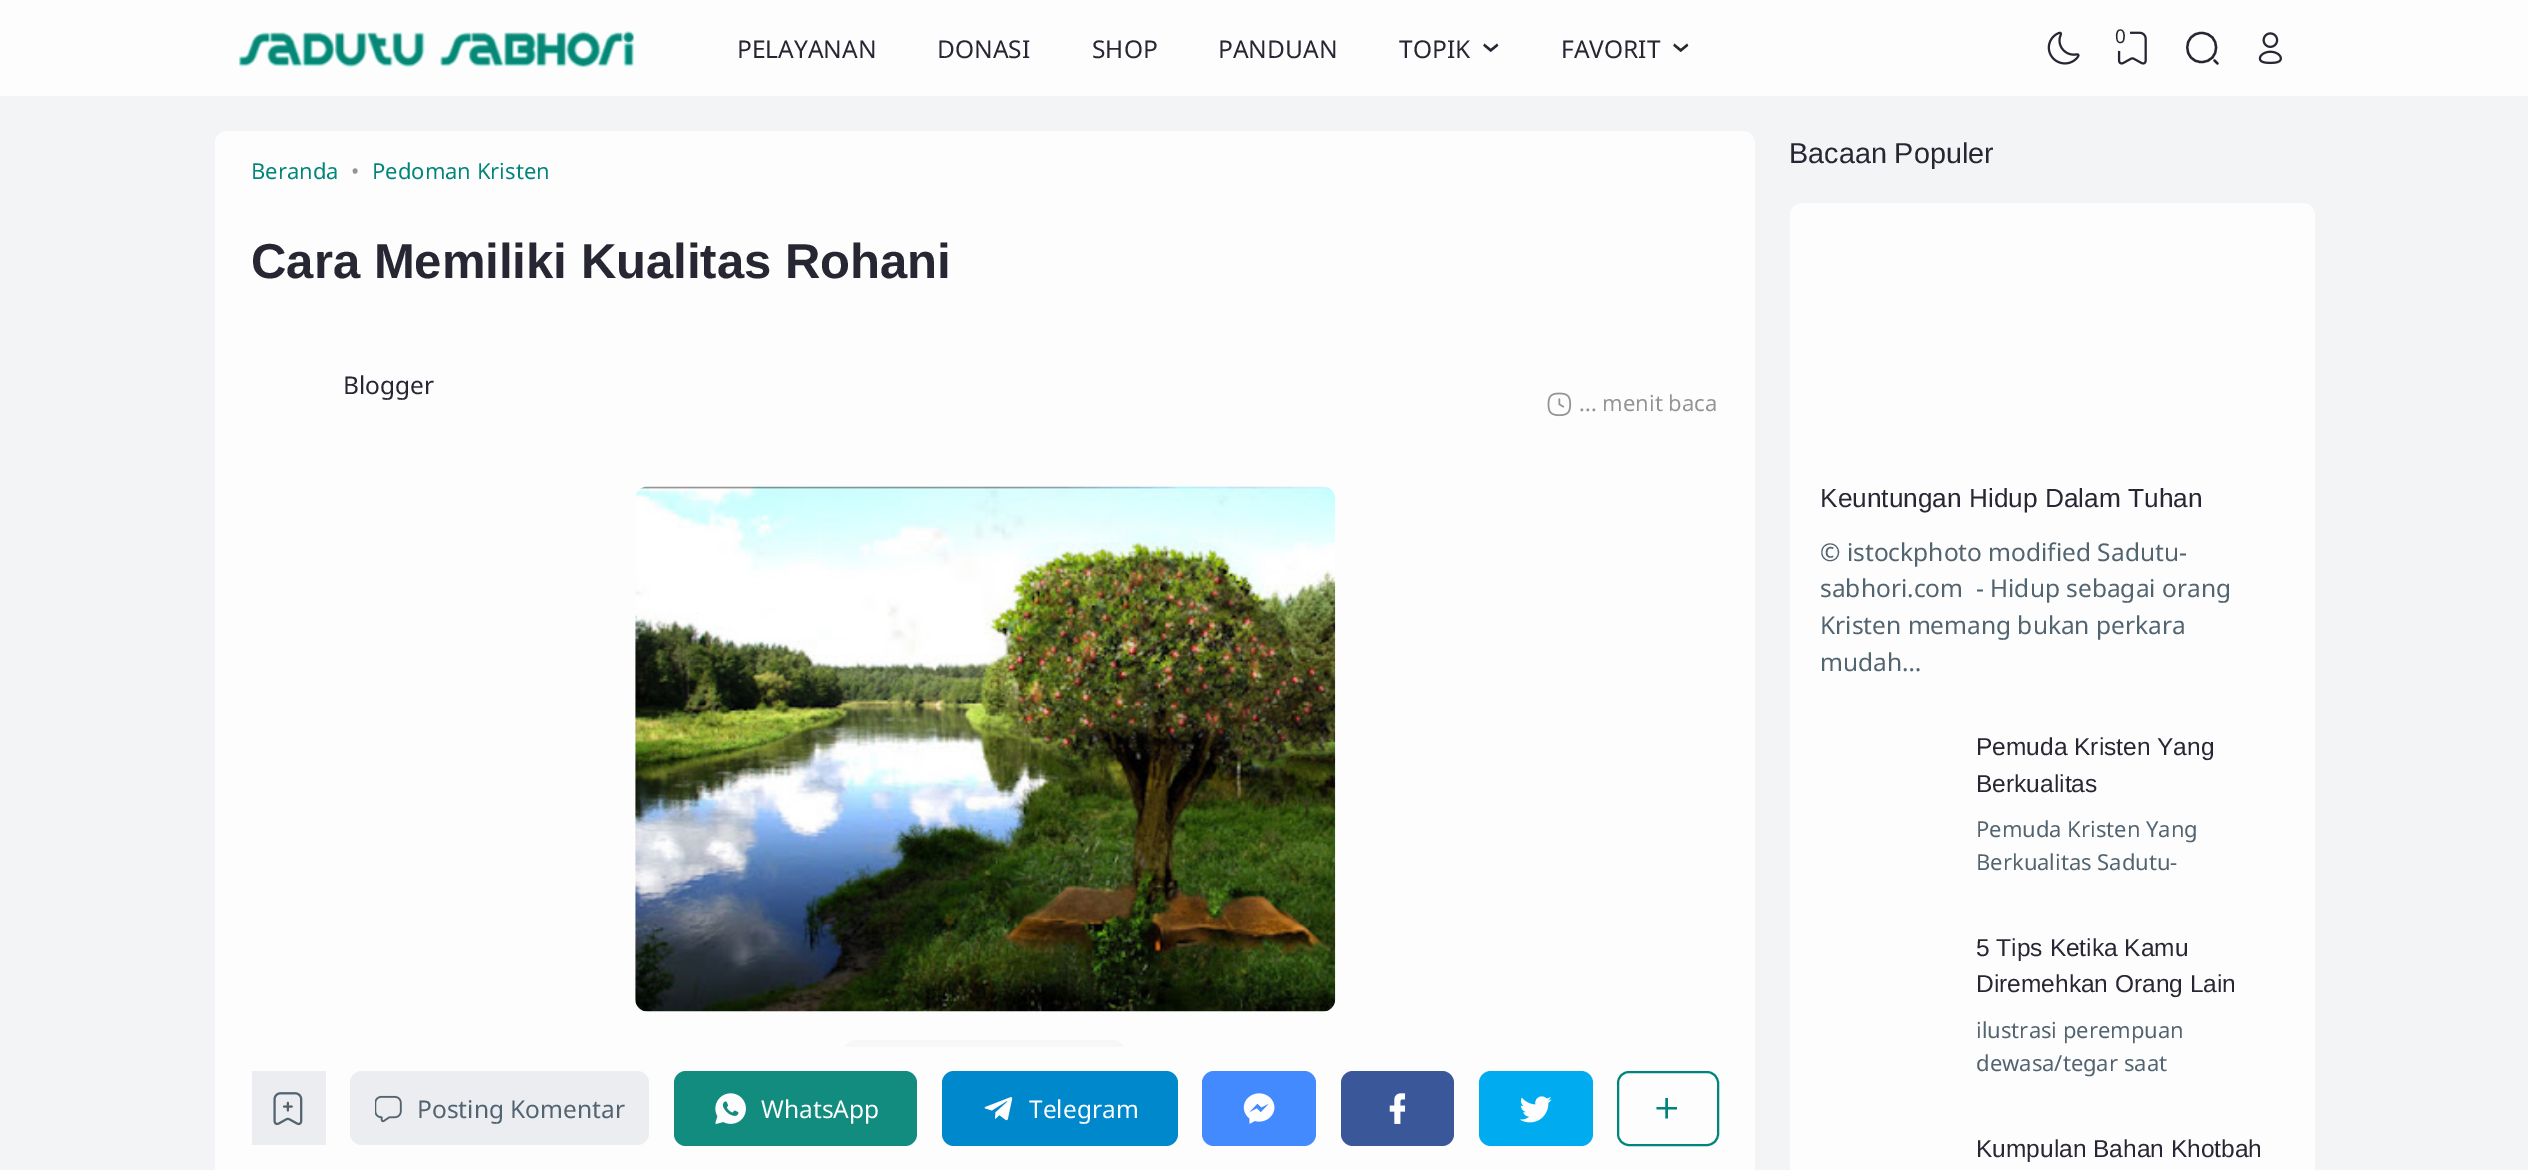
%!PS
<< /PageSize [2528 1170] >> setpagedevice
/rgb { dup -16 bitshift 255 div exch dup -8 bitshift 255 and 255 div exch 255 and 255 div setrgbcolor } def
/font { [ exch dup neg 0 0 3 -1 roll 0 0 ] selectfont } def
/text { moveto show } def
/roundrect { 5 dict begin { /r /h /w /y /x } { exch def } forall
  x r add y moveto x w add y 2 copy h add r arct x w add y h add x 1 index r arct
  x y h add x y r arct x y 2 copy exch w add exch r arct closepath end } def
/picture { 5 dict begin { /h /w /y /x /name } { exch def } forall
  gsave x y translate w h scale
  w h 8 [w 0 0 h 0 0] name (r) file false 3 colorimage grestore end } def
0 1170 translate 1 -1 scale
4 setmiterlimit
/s1 { /NotoSans-Regular 24.5 font 16#272733 rgb } def
/s2 { /NotoSans-Regular 19 font 16#272733 rgb } def
/s3 { /NotoSans-Regular 22 font 16#00857C rgb } def
/s4 { /NotoSans-Regular 22 font 16#949494 rgb } def
/s5 { /LiberationSans-Bold 49 font 16#272733 rgb } def
/s6 { /NotoSans-Regular 24.5 font 16#536471 rgb } def
/s7 { /NotoSans-Regular 24.5 font 16#FDFDFD rgb } def
/s8 { /LiberationSans-Regular 28.75 font 16#272733 rgb } def
/s9 { /LiberationSans-Regular 26.25 font 16#272733 rgb } def
/s10 { /LiberationSans-Regular 24.5 font 16#272733 rgb } def
/s11 { /NotoSans-Regular 22 font 16#536471 rgb } def
16#F3F4F6 rgb
0 0 2528 1170 rectfill
16#FDFDFD rgb
0 0 2528 96 rectfill
(pic1.raw) 239 31 395 37 picture
s1
(PELAYANAN) 737 58 text
(DONASI) 937 58 text
(SHOP) 1092 58 text
(PANDUAN) 1218 58 text
(TOPIK) 1399 58 text
/NotoSans-Regular 37 font
gsave 1481 42 translate 90 rotate 0 0 moveto (›) show grestore
s1
(FAVORIT) 1561 58 text
/NotoSans-Regular 37 font
gsave 1671 42 translate 90 rotate 0 0 moveto (›) show grestore
(pic2.raw) 2047 31 33 34 picture
(pic3.raw) 2117 31 30 34 picture
16#FDFDFD rgb
2111 21 19 30 9.5 roundrect fill
s2
(0) 2115 43 text
2.3 setlinewidth
1 setlinecap
1 setlinejoin
2201.5 62 moveto 2221 62 2221 33 2201.5 33 curveto 2182.5 33 2182.5 62 2201.5 62 curveto closepath 2217.5 63.5 moveto 2214.5 60.5 lineto stroke
(pic4.raw) 2258 32 24 33 picture
16#FDFDFD rgb
215 131 1540 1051 12 roundrect fill
s3
(Beranda) 251 179 text
s4
(•) 351 179 text
s3
(Pedoman Kristen) 372 179 text
s5
(Cara Memiliki Kualitas Rohani) 251 278 text
s1
(Blogger) 343 394 text
(pic5.raw) 1547 392 25 25 picture
s4
(... menit baca) 1579 411 text
(pic6.raw) 635 486 701 526 picture
16#F7F7F7 rgb
844 1040 281 98 12 roundrect fill
16#FDFDFD rgb
844 1047 281 91 rectfill
16#EBEDF1 rgb
252 1071 74 74 rectfill
(pic7.raw) 273 1092 30 34 picture
350 1071 299 74 12 roundrect fill
(pic8.raw) 375 1095 27 28 picture
s6
(Posting Komentar) 417 1118 text
16#128C7E rgb
674 1071 243 75 12 roundrect fill
(pic9.raw) 715 1093 31 31 picture
s7
(WhatsApp) 761 1118 text
16#0088CC rgb
942 1071 236 75 12 roundrect fill
(pic10.raw) 984 1097 29 24 picture
s7
(Telegram) 1029 1118 text
16#448AFF rgb
1202 1071 114 75 12 roundrect fill
(pic11.raw) 1243 1093 32 31 picture
16#3A579A rgb
1341 1071 113 75 12 roundrect fill
(pic12.raw) 1389 1093 17 31 picture
16#00ABF0 rgb
1479 1071 114 75 12 roundrect fill
(pic13.raw) 1519 1096 33 27 picture
16#00857C rgb
2 setlinewidth
0 setlinecap
0 setlinejoin
1618 1072 100 73 11 roundrect stroke
/NotoSans-Regular 37 font
gsave 1650 1110 translate 45 rotate 0 0 moveto (×) show grestore
s8
(Bacaan Populer) 1789 163 text
16#FDFDFD rgb
1790 203 525 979 12 roundrect fill
s9
(Keuntungan Hidup Dalam Tuhan) 1820 507 text
s6
(© istockphoto modified Sadutu-) 1820 561 text
(sabhori.com  - Hidup sebagai orang) 1820 597 text
(Kristen memang bukan perkara) 1820 634 text
(mudah…) 1820 671 text
s10
(Pemuda Kristen Yang) 1976 755 text
(Berkualitas) 1976 792 text
s11
(Pemuda Kristen Yang) 1976 837 text
(Berkualitas Sadutu-) 1976 870 text
s10
(5 Tips Ketika Kamu) 1976 956 text
(Diremehkan Orang Lain) 1976 992 text
s11
(ilustrasi perempuan) 1976 1038 text
(dewasa/tegar saat) 1976 1071 text
s10
(Kumpulan Bahan Khotbah) 1976 1157 text
showpage
